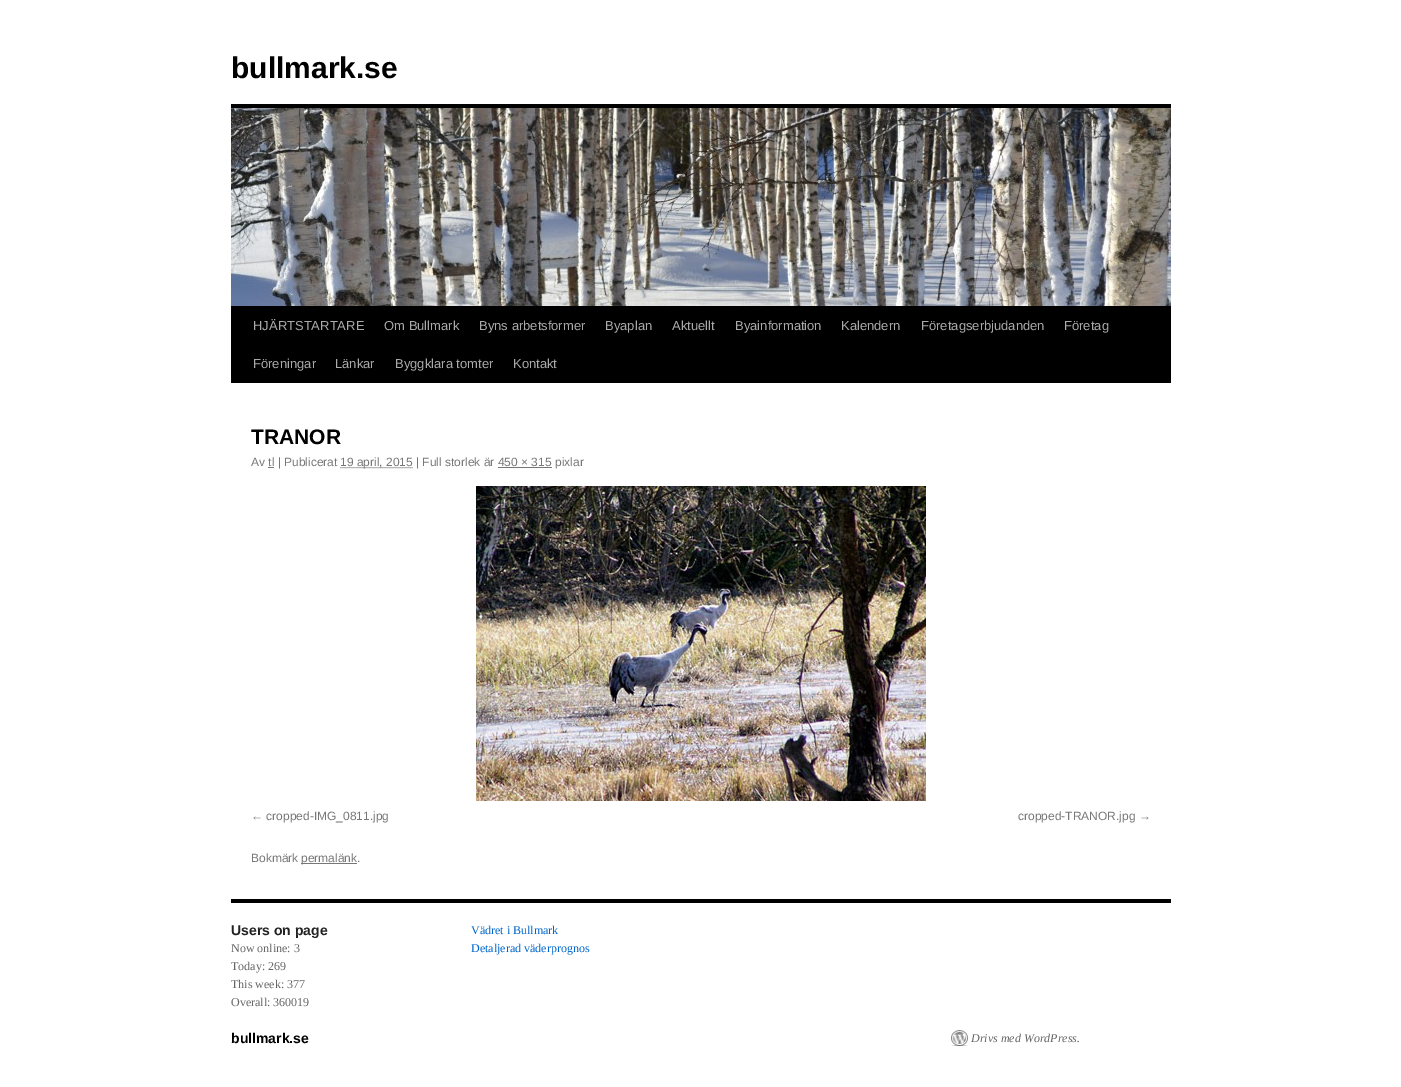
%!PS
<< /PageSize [1401 1087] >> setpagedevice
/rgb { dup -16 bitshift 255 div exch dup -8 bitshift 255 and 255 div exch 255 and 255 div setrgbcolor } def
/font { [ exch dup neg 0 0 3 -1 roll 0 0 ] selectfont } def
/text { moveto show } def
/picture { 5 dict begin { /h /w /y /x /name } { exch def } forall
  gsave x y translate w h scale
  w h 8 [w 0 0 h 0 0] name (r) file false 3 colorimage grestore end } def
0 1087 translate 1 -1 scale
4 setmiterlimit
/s1 { /LiberationSans-Bold 30 font 16#000000 rgb } def
/s2 { /LiberationSans-Regular 13 font 16#AAAAAA rgb } def
/s3 { /LiberationSans-Bold 21 font 16#000000 rgb } def
/s4 { /LiberationSans-Regular 12 font 16#777777 rgb } def
/s5 { /LiberationSans-Bold 14 font 16#222222 rgb } def
/s6 { /LiberationSerif-Regular 12 font 16#666666 rgb } def
/s7 { /LiberationSerif-Regular 12 font 16#0066CC rgb } def
/s8 { /LiberationSans-Bold 14 font 16#000000 rgb } def
/s9 { /LiberationSerif-Italic 12 font 16#666666 rgb } def
16#FFFFFF rgb
0 0 1401 1087 rectfill
s1
(bullmark.se) 231 78 text
231 104 940 4 rectfill
231 306 940 77 rectfill
(pic1.raw) 231 108 940 198 picture
s2
(HJÄRTSTARTARE) 253 330 text
(Om Bullmark) 384 330 text
(Byns arbetsformer) 479 330 text
(Byaplan) 605 330 text
(Aktuellt) 672 330 text
(Byainformation) 735 330 text
(Kalendern) 841 330 text
(Företagserbjudanden) 921 330 text
(Företag) 1064 330 text
(Föreningar) 253 368 text
(Länkar) 335 368 text
(Byggklara tomter) 395 368 text
(Kontakt) 513 368 text
s3
(TRANOR) 251 444 text
s4
(Av tl | Publicerat) 251 466 text
[1 1] 0 setdash
340.5 467.5 moveto 413 467.5 lineto stroke
(19 april, 2015 | Full storlek är 450 × 315 pixlar) 340 466 text
268 467 6 1 rectfill
498 467 54 1 rectfill
(pic2.raw) 476 486 450 315 picture
(← cropped-IMG_0811.jpg) 251 820 text
(cropped-TRANOR.jpg →) 1018 820 text
(Bokmärk) 251 862 text
301 863 56 1 rectfill
(permalänk.) 301 862 text
16#000000 rgb
231 899 940 4 rectfill
s5
(Users on page) 231 935 text
s6
(Now online: 3) 231 952 text
(Today: 269) 231 970 text
(This week: 377) 231 988 text
(Overall: 360019) 231 1006 text
s7
(Vädret i Bullmark) 471 934 text
(Detaljerad väderprognos) 471 952 text
s8
(bullmark.se) 231 1043 text
(pic3.raw) 951 1030 17 16 picture
s9
(Drivs med WordPress.) 971 1042 text
showpage
